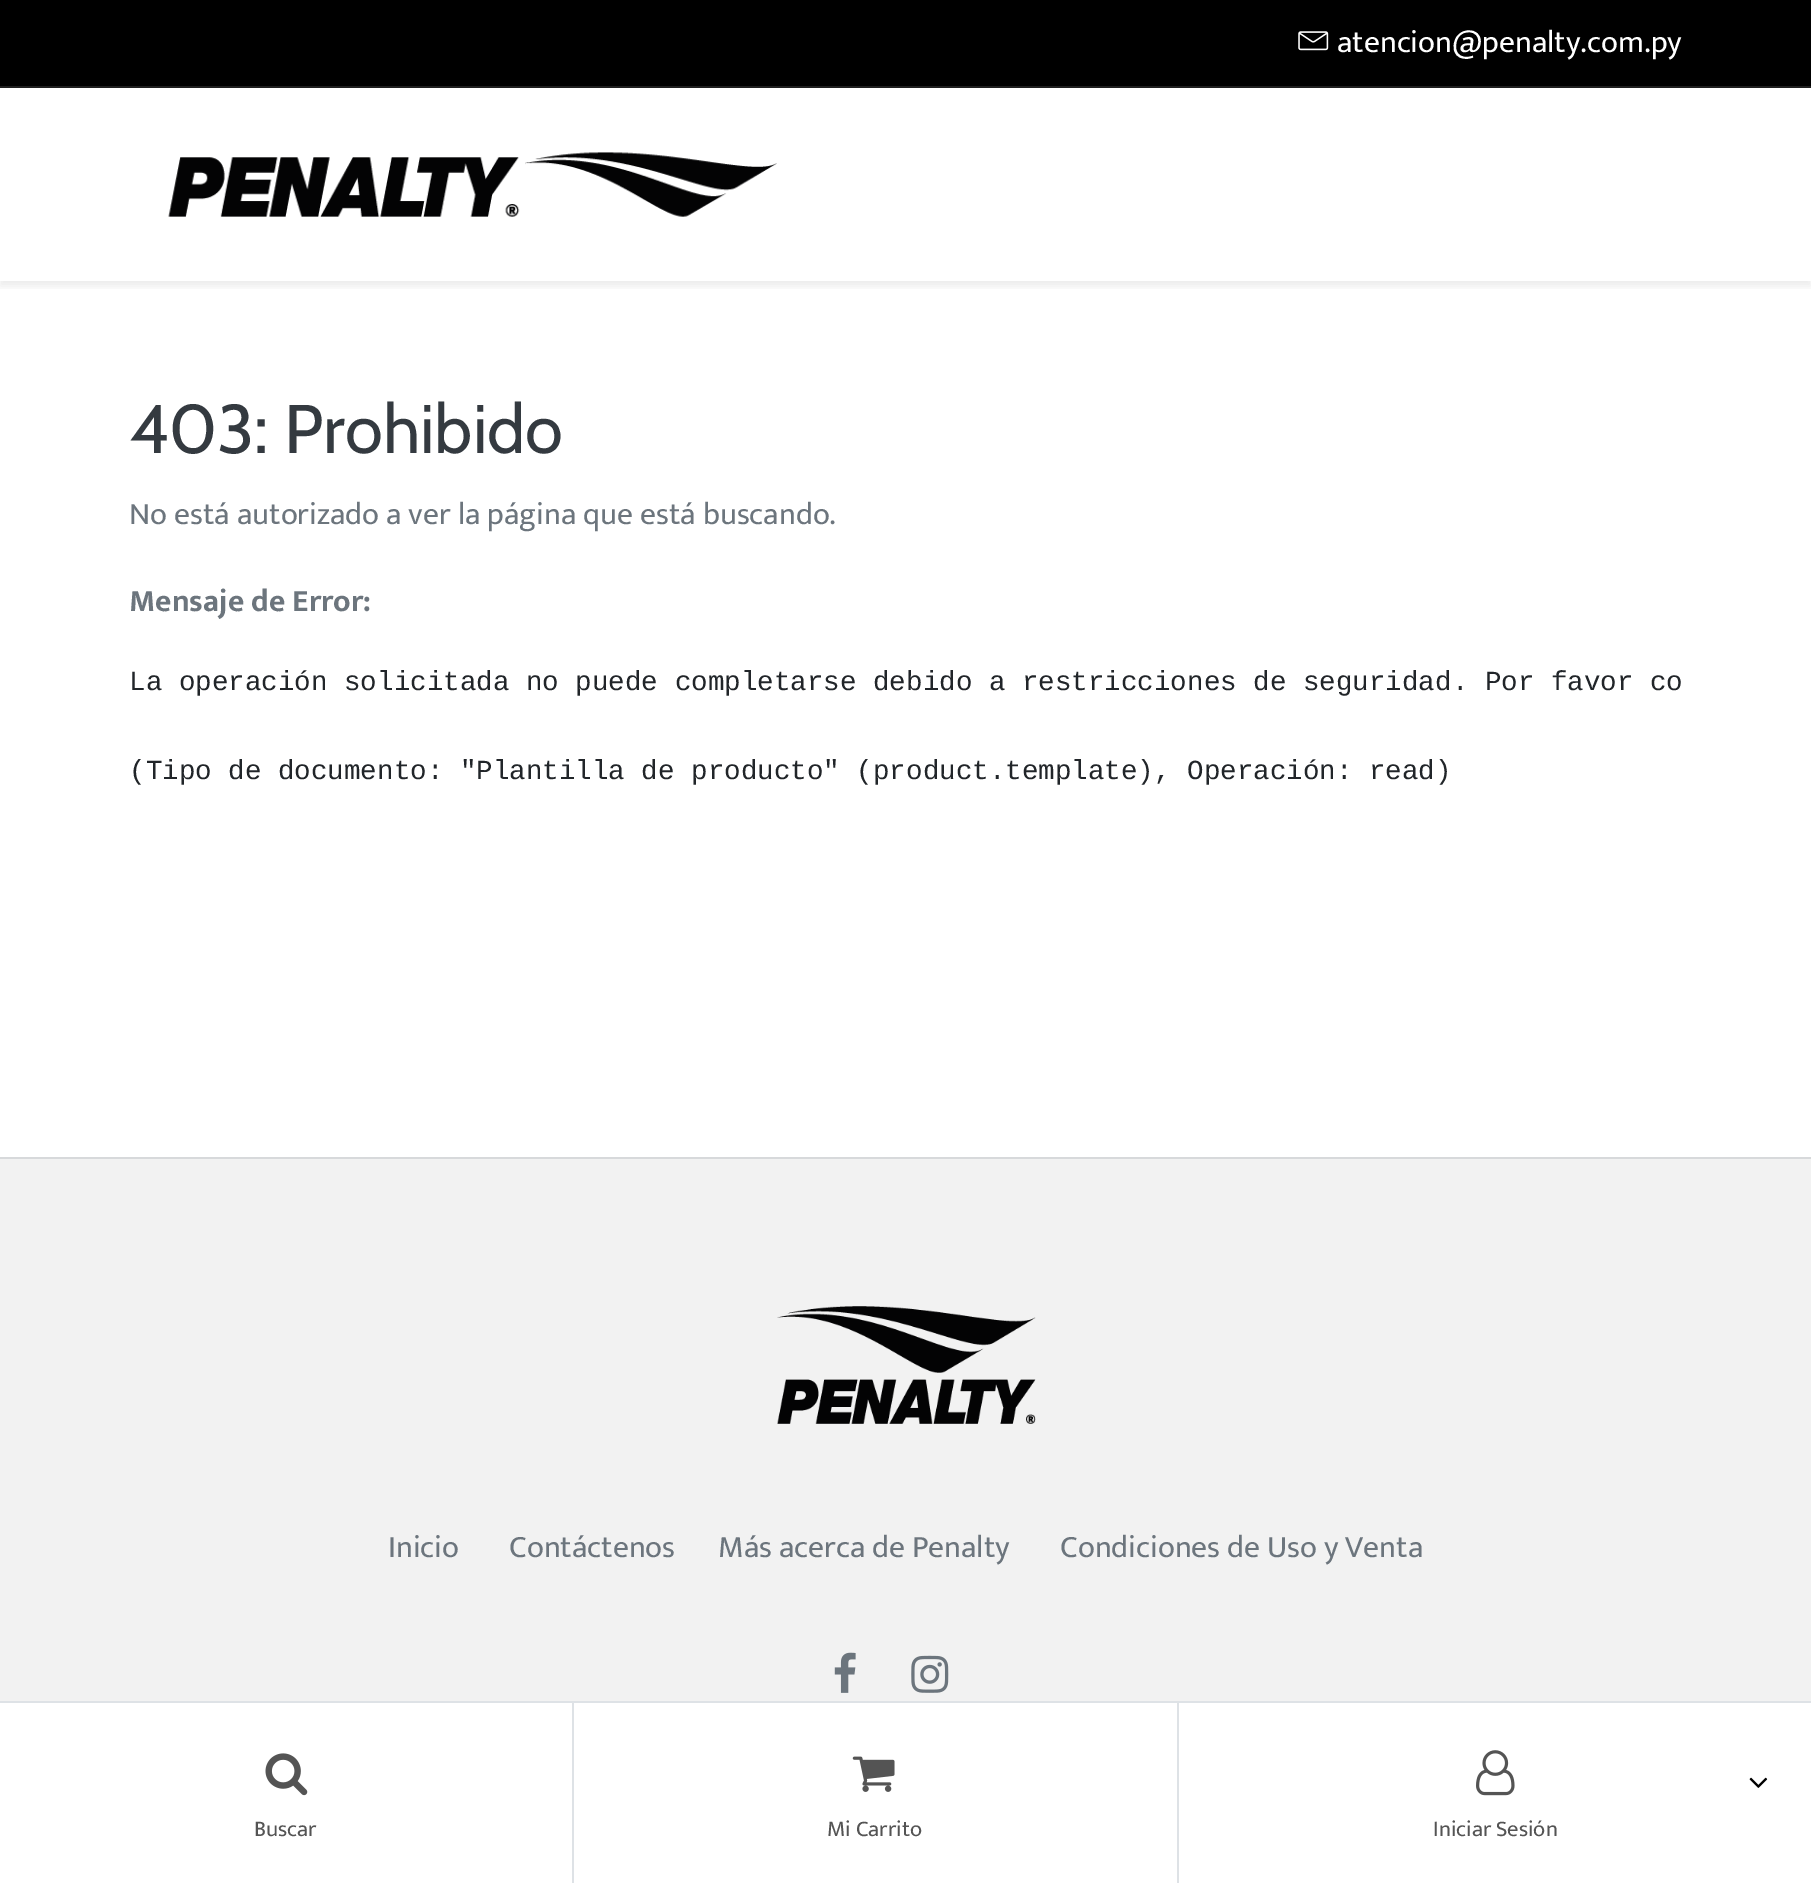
%!PS
<< /PageSize [1811 1883] /PageUsesTransparency true >> setpagedevice
/rgb { dup -16 bitshift 255 div exch dup -8 bitshift 255 and 255 div exch 255 and 255 div setrgbcolor } def
/font { [ exch dup neg 0 0 3 -1 roll 0 0 ] selectfont } def
/text { moveto show } def
/alpha { dup .setfillconstantalpha .setstrokeconstantalpha } def
/roundrect { 5 dict begin { /r /h /w /y /x } { exch def } forall
  x r add y moveto x w add y 2 copy h add r arct x w add y h add x 1 index r arct
  x y h add x y r arct x y 2 copy exch w add exch r arct closepath end } def
/shadow { 12 dict begin { /a /b /q /h /w /y /x } { exch def } forall gsave /was 0 def
  9 -2 -9 { dup b mul 4 div /e exch def 1 sub .425 mul 2.718 exch exp 1 add a .99 .min exch div /now exch def
    1 1 now sub 1 was sub div sub alpha /was now def
    w h .min e 2 mul add 0 gt { x e sub y e sub w e 2 mul add h e 2 mul add
      q e add b .6 mul add w h .min 2 div e add .min 0 .max roundrect fill } if } for grestore end } def
/picture { 5 dict begin { /h /w /y /x /name } { exch def } forall
  gsave x y translate w h scale
  w h 8 [w 0 0 h 0 0] name (r) file false 3 colorimage grestore end } def
0 .pushpdf14devicefilter
0 1883 translate 1 -1 scale
4 setmiterlimit
/s1 { /Mukta-Regular 31.5 font 16#FFFFFF rgb } def
/s2 { /Cabin-Regular 68.75 font 16#343A40 rgb } def
/s3 { /Mukta-Regular 31.5 font 16#6C757D rgb } def
/s4 { /Mukta-Bold 31.5 font 16#6C757D rgb } def
/s5 { /LiberationMono-Regular 27.55 font 16#212529 rgb } def
/s6 { /Mukta-Regular 22.5 font 16#545454 rgb } def
16#FFFFFF rgb
0 0 1811 1883 rectfill
16#000000 rgb
0 0 1811 86 rectfill
16#1F1F1F rgb
0 86 1811 2 rectfill
(pic1.raw) 1298 31 31 20 picture
s1
(atencion@penalty.com.py) 1337 52 text
gsave
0 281 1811 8 rectclip
16#000000 rgb
0 92 1811 194 0 4.5 0.07 shadow
grestore
(pic2.raw) 168 152 609 65 picture
s2
(403: Prohibido) 129 453 text
s3
(No está autorizado a ver la página que está buscando.) 129 524 text
s4
(Mensaje de Error:) 129 611 text
s5
(La operación solicitada no puede completarse debido a restricciones de seguridad. Por favor co) 129 690 text
(\(Tipo de documento: "Plantilla de producto" \(product.template\), Operación: read\)) 129 779 text
16#F2F2F2 rgb
0 1159 1811 542 rectfill
16#D7D9DB rgb
0 1157 1811 2 rectfill
(pic3.raw) 777 1306 259 118 picture
s3
(Inicio) 388 1557 text
(Contáctenos) 509 1557 text
(Más acerca de Penalty) 718 1557 text
(Condiciones de Uso y Venta) 1060 1557 text
(pic4.raw) 834 1652 22 41 picture
(pic5.raw) 911 1655 38 38 picture
16#DEE2E6 rgb
0 1701 1811 2 rectfill
572 1703 2 180 rectfill
(pic6.raw) 265 1753 43 43 picture
s6
(Buscar) 254 1836 text
16#DEE2E6 rgb
1177 1703 2 180 rectfill
(pic7.raw) 852 1756 43 36 picture
s6
(Mi Carrito) 827 1836 text
(pic8.raw) 1476 1750 39 46 picture
(pic9.raw) 1749 1777 19 11 picture
(Iniciar Sesión) 1433 1836 text
.poppdf14devicefilter showpage
